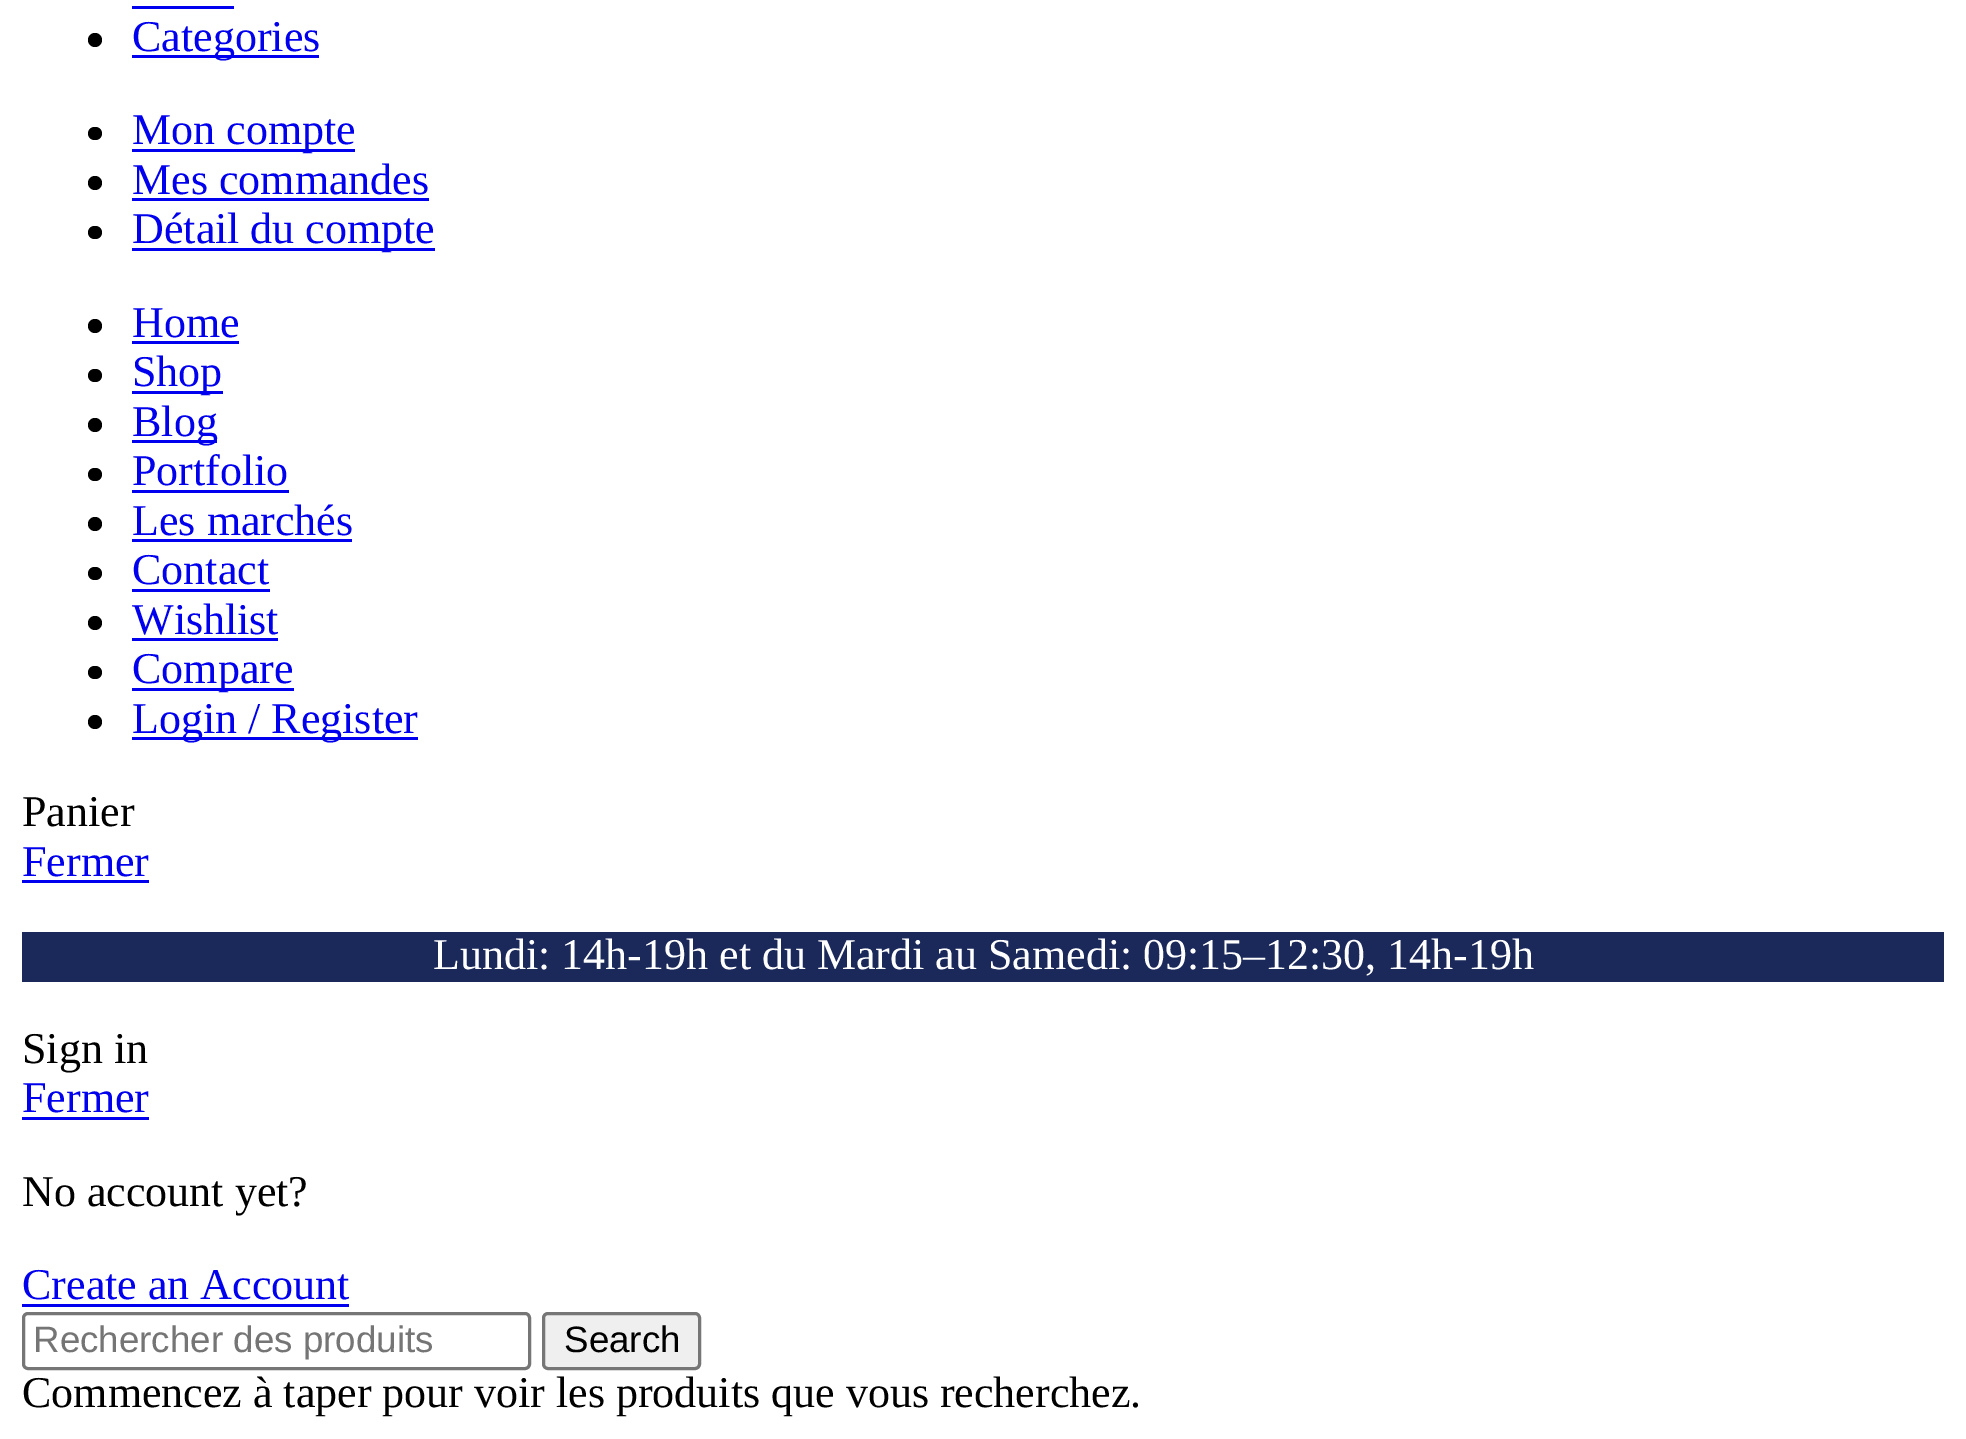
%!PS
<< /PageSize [1966 1439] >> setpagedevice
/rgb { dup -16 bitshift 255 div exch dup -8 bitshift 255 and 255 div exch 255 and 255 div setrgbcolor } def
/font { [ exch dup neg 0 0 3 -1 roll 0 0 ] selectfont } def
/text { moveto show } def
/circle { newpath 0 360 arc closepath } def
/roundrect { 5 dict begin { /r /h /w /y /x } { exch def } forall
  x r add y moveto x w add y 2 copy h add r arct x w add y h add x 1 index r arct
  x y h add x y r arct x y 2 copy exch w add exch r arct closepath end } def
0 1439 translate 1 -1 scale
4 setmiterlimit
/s1 { /LiberationSerif-Regular 44 font 16#0000EE rgb } def
/s2 { /LiberationSerif-Regular 44 font 16#000000 rgb } def
/s3 { /LiberationSerif-Regular 44 font 16#FFFFFF rgb } def
/s4 { /LiberationSans-Regular 36.75 font 16#757575 rgb } def
/s5 { /LiberationSans-Regular 36.75 font 16#000000 rgb } def
16#FFFFFF rgb
0 0 1966 1439 rectfill
16#0000EE rgb
132 6 102 3 rectfill
16#000000 rgb
95 40 7 circle fill
16#0000EE rgb
132 55 187 3 rectfill
s1
(Categories) 132 51 text
16#000000 rgb
88 127 14 13 6.5 roundrect fill
16#0000EE rgb
132 149 223 3 rectfill
(Mon compte) 132 144 text
16#000000 rgb
95 183 7 circle fill
s1
(Mes commandes) 132 194 text
132 198 297 3 rectfill
16#000000 rgb
88 226 14 13 6.5 roundrect fill
16#0000EE rgb
132 248 303 3 rectfill
(Détail du compte) 132 243 text
16#000000 rgb
95 326 7 circle fill
s1
(Home) 132 337 text
132 341 107 3 rectfill
16#000000 rgb
88 369 14 13 6.5 roundrect fill
16#0000EE rgb
132 391 91 3 rectfill
(Shop) 132 386 text
16#000000 rgb
95 425 7 circle fill
16#0000EE rgb
132 440 85 3 rectfill
(Blog) 132 436 text
16#000000 rgb
88 468 14 13 6.5 roundrect fill
s1
(Portfolio) 132 485 text
132 490 157 3 rectfill
16#000000 rgb
95 524 7 circle fill
s1
(Les marchés) 132 535 text
132 539 220 3 rectfill
16#000000 rgb
88 567 14 13 6.5 roundrect fill
s1
(Contact) 132 584 text
132 589 138 3 rectfill
16#000000 rgb
95 623 7 circle fill
s1
(Wishlist) 132 634 text
132 638 146 3 rectfill
16#000000 rgb
88 666 14 13 6.5 roundrect fill
16#0000EE rgb
132 688 162 3 rectfill
(Compare) 132 683 text
16#000000 rgb
95 722 7 circle fill
16#0000EE rgb
132 737 286 3 rectfill
(Login / Register) 132 733 text
s2
(Panier) 22 826 text
s1
(Fermer) 22 876 text
22 880 127 3 rectfill
16#1A285A rgb
22 932 1922 50 rectfill
s3
(Lundi: 14h-19h et du Mardi au Samedi: 09:15–12:30, 14h-19h) 433 969 text
s2
(Sign in) 22 1063 text
s1
(Fermer) 22 1112 text
22 1117 127 3 rectfill
s2
(No account yet?) 22 1206 text
s1
(Create an Account) 22 1299 text
22 1304 327 3 rectfill
16#767676 rgb
3 setlinewidth
23.5 1313.5 506 55 4.5 roundrect stroke
s4
(Rechercher des produits) 33 1352 text
16#EFEFEF rgb
543.5 1313.5 156 55 4.5 roundrect gsave fill grestore
16#767676 rgb
stroke
s5
(Search) 564 1352 text
s2
(Commencez à taper pour voir les produits que vous recherchez.) 22 1407 text
showpage
